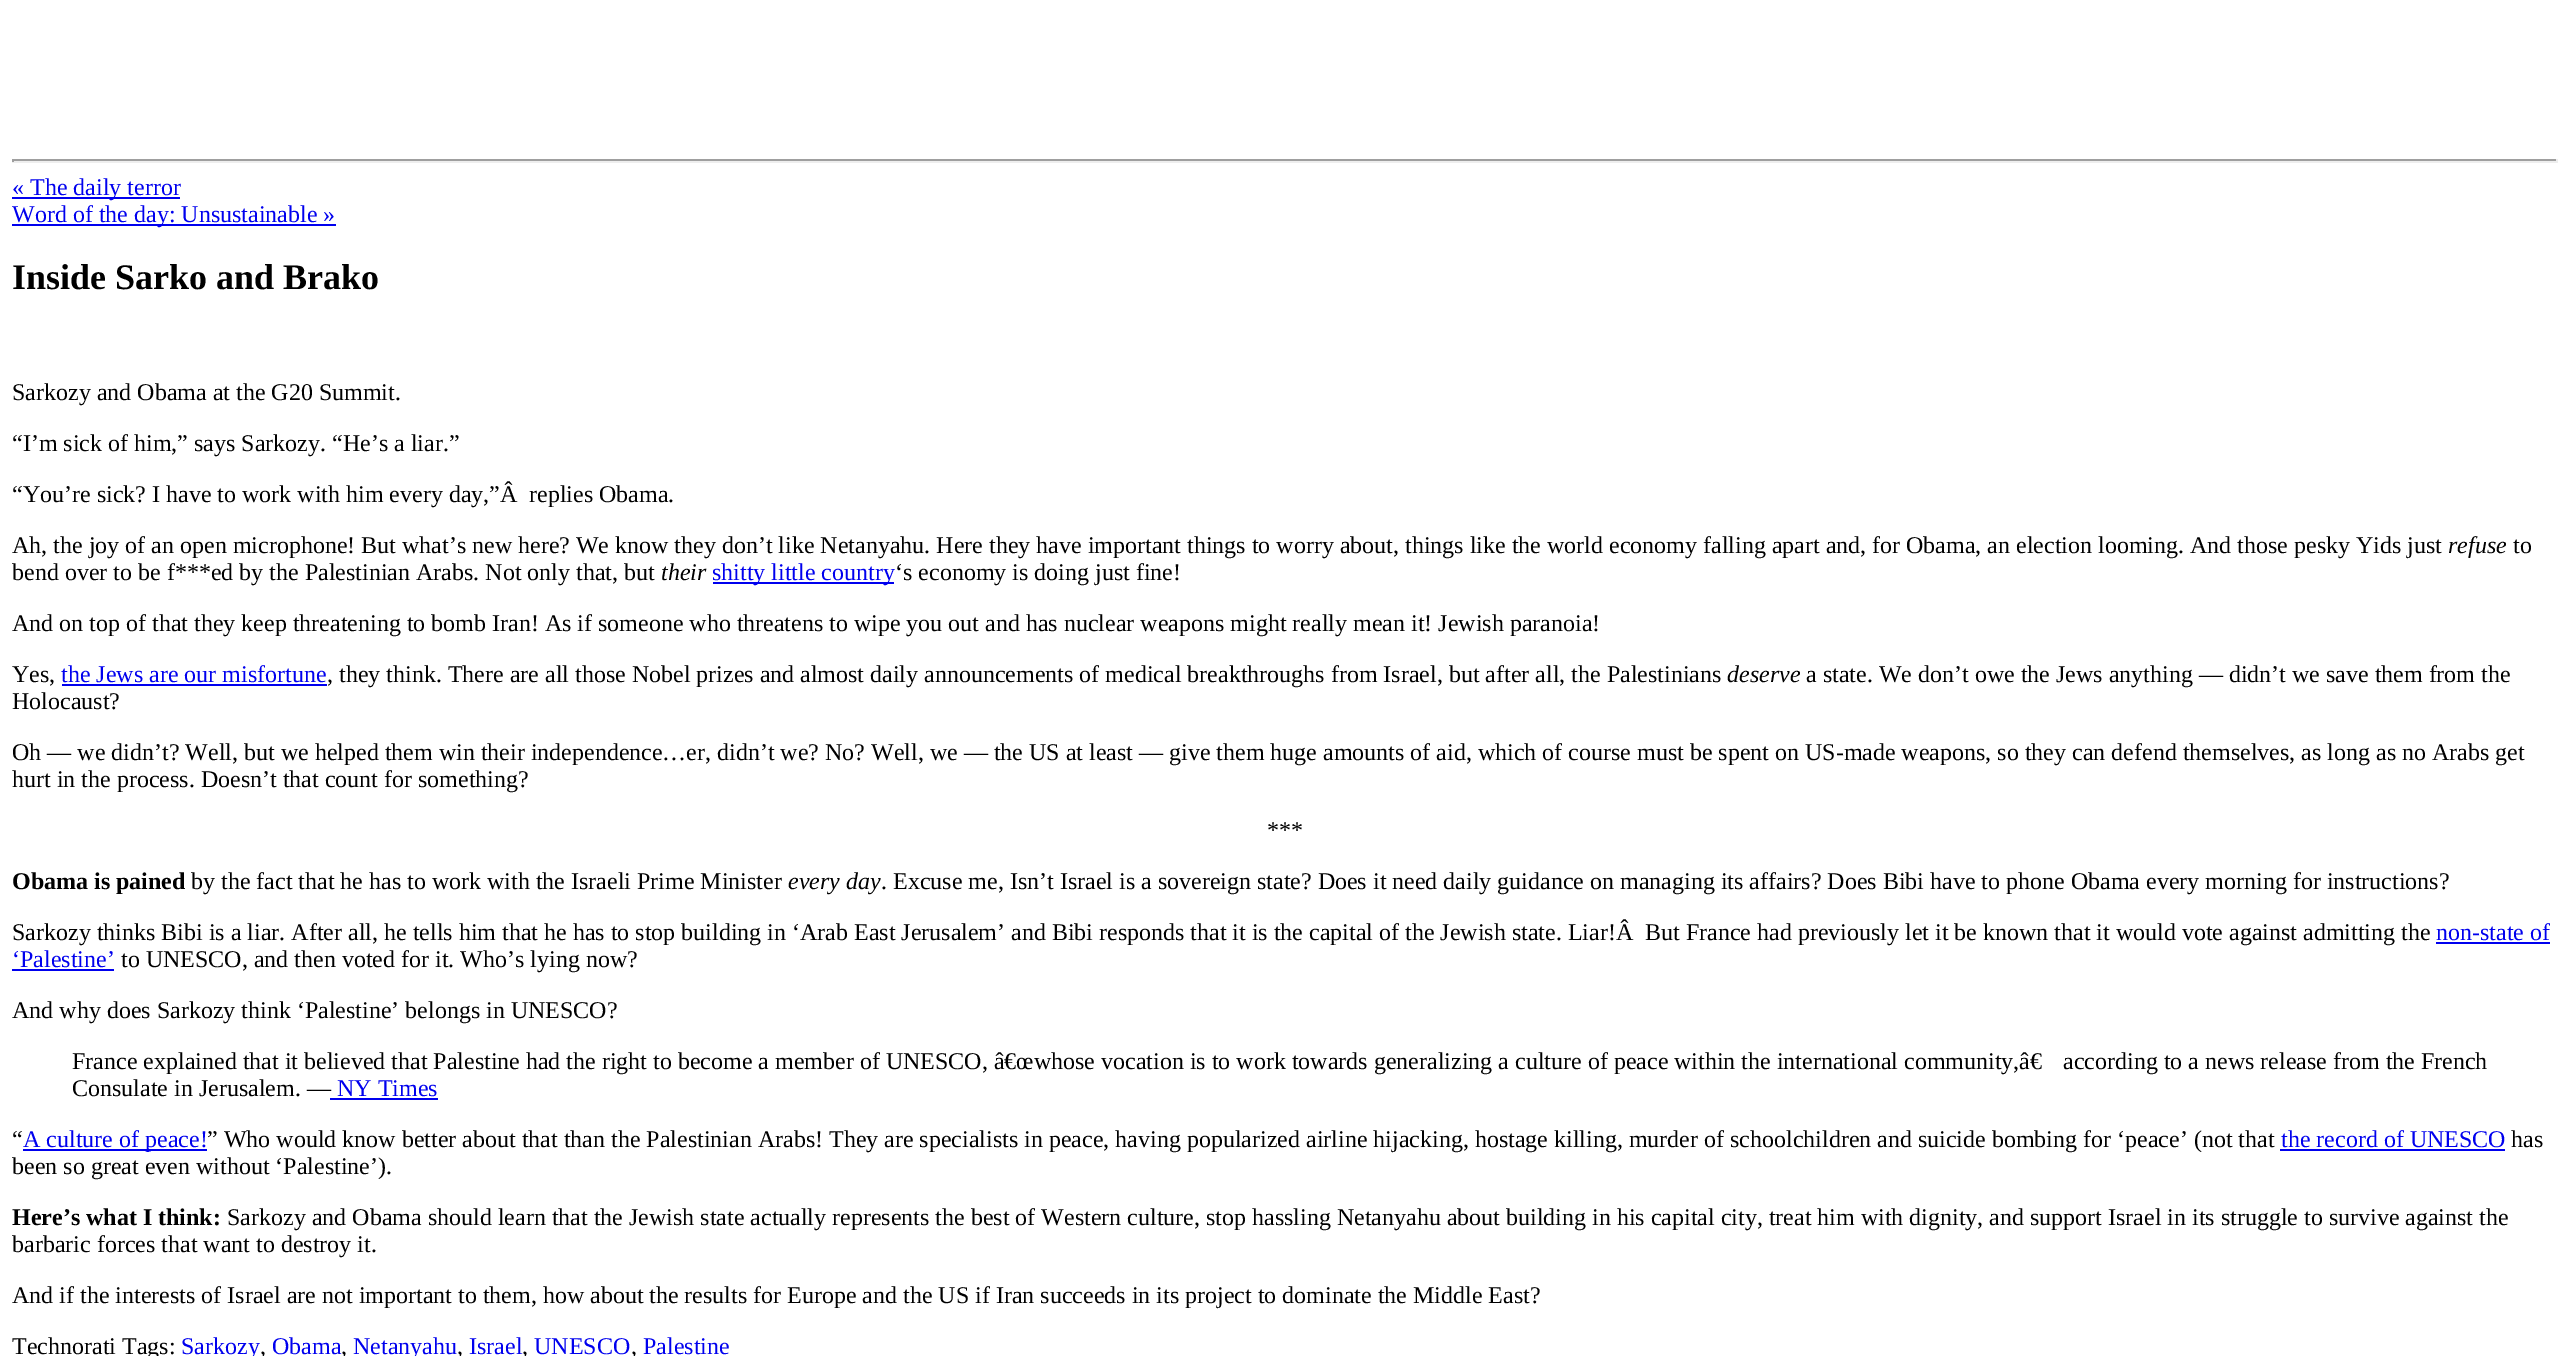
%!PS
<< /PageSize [2569 1356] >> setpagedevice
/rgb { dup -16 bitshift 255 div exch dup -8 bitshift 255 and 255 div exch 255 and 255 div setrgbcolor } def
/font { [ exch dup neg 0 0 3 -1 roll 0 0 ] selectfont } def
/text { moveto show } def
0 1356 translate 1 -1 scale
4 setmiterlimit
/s1 { /LiberationSerif-Regular 24 font 16#0000EE rgb } def
/s2 { /LiberationSerif-Bold 36 font 16#000000 rgb } def
/s3 { /LiberationSerif-Regular 24 font 16#000000 rgb } def
/s4 { /LiberationSerif-Italic 24 font 16#000000 rgb } def
/s5 { /LiberationSerif-Bold 24 font 16#000000 rgb } def
16#FFFFFF rgb
0 0 2569 1356 rectfill
16#9F9F9F rgb
12 159 2546 2 rectfill
16#EEEEEE rgb
2556 159 2 3 rectfill
12 161 2546 2 rectfill
16#9F9F9F rgb
12 159 2 3 rectfill
16#0000EE rgb
12 197 168 2 rectfill
s1
(« The daily terror) 12 195 text
12 224 324 2 rectfill
(Word of the day: Unsustainable ») 12 222 text
s2
(Inside Sarko and Brako) 12 289 text
s3
(Sarkozy and Obama at the G20 Summit.) 12 400 text
(“I’m sick of him,” says Sarkozy. “He’s a liar.”) 12 451 text
(“You’re sick? I have to work with him every day,”Â  replies Obama.) 12 502 text
(Ah, the joy of an open microphone! But what’s new here? We know they don’t like Netanyahu. Here they have important things to worry about, things like the world economy falling apart and, for Obama, an election looming. And those pesky Yids just) 12 553 text
s4
(refuse) 2448 553 text
s3
(to) 2513 553 text
(bend over to be f***ed by the Palestinian Arabs. Not only that, but) 12 580 text
s4
(their) 661 580 text
16#0000EE rgb
713 582 181 2 rectfill
s1
(shitty little country) 712 580 text
s3
(‘s economy is doing just fine!) 895 580 text
(And on top of that they keep threatening to bomb Iran! As if someone who threatens to wipe you out and has nuclear weapons might really mean it! Jewish paranoia!) 12 631 text
(Yes,) 12 682 text
s1
(the Jews are our misfortune) 61 682 text
62 684 265 2 rectfill
s3
(, they think. There are all those Nobel prizes and almost daily announcements of medical breakthroughs from Israel, but after all, the Palestinians) 327 682 text
s4
(deserve) 1727 682 text
s3
(a state. We don’t owe the Jews anything — didn’t we save them from the) 1806 682 text
(Holocaust?) 12 709 text
(Oh — we didn’t? Well, but we helped them win their independence…er, didn’t we? No? Well, we — the US at least — give them huge amounts of aid, which of course must be spent on US-made weapons, so they can defend themselves, as long as no Arabs get) 12 760 text
(hurt in the process. Doesn’t that count for something?) 12 787 text
(***) 1267 838 text
s5
(Obama is pained) 12 889 text
s3
(by the fact that he has to work with the Israeli Prime Minister) 191 889 text
s4
(every day) 788 889 text
s3
(. Excuse me, Isn’t Israel is a sovereign state? Does it need daily guidance on managing its affairs? Does Bibi have to phone Obama every morning for instructions?) 881 889 text
(Sarkozy thinks Bibi is a liar. After all, he tells him that he has to stop building in ‘Arab East Jerusalem’ and Bibi responds that it is the capital of the Jewish state. Liar!Â  But France had previously let it be known that it would vote against admitting the) 12 940 text
s1
(non-state of) 2436 940 text
2436 942 114 2 rectfill
(‘Palestine’) 12 967 text
12 969 102 2 rectfill
s3
(to UNESCO, and then voted for it. Who’s lying now?) 121 967 text
(And why does Sarkozy think ‘Palestine’ belongs in UNESCO?) 12 1018 text
(France explained that it believed that Palestine had the right to become a member of UNESCO, â€œwhose vocation is to work towards generalizing a culture of peace within the international community,â€) 72 1069 text
(according to a news release from the French) 2063 1069 text
(Consulate in Jerusalem. —) 72 1096 text
s1
(NY Times) 337 1096 text
330 1098 108 2 rectfill
s3
(“) 12 1147 text
16#0000EE rgb
23 1149 184 2 rectfill
(A culture of peace!) 23 1147 text
s3
(” Who would know better about that than the Palestinian Arabs! They are specialists in peace, having popularized airline hijacking, hostage killing, murder of schoolchildren and suicide bombing for ‘peace’ \(not that) 207 1147 text
s1
(the record of UNESCO) 2281 1147 text
2280 1149 225 2 rectfill
s3
(has) 2511 1147 text
(been so great even without ‘Palestine’\).) 12 1174 text
s5
(Here’s what I think:) 12 1225 text
s3
(Sarkozy and Obama should learn that the Jewish state actually represents the best of Western culture, stop hassling Netanyahu about building in his capital city, treat him with dignity, and support Israel in its struggle to survive against the) 227 1225 text
(barbaric forces that want to destroy it.) 12 1252 text
(And if the interests of Israel are not important to them, how about the results for Europe and the US if Iran succeeds in its project to dominate the Middle East?) 12 1303 text
(Technorati Tags:) 12 1354 text
s1
(Sarkozy) 181 1354 text
s3
(,) 260 1354 text
s1
(Obama) 272 1354 text
s3
(,) 341 1354 text
s1
(Netanyahu) 353 1354 text
s3
(,) 457 1354 text
s1
(Israel) 469 1354 text
s3
(,) 522 1354 text
s1
(UNESCO) 534 1354 text
s3
(,) 631 1354 text
s1
(Palestine) 643 1354 text
showpage
